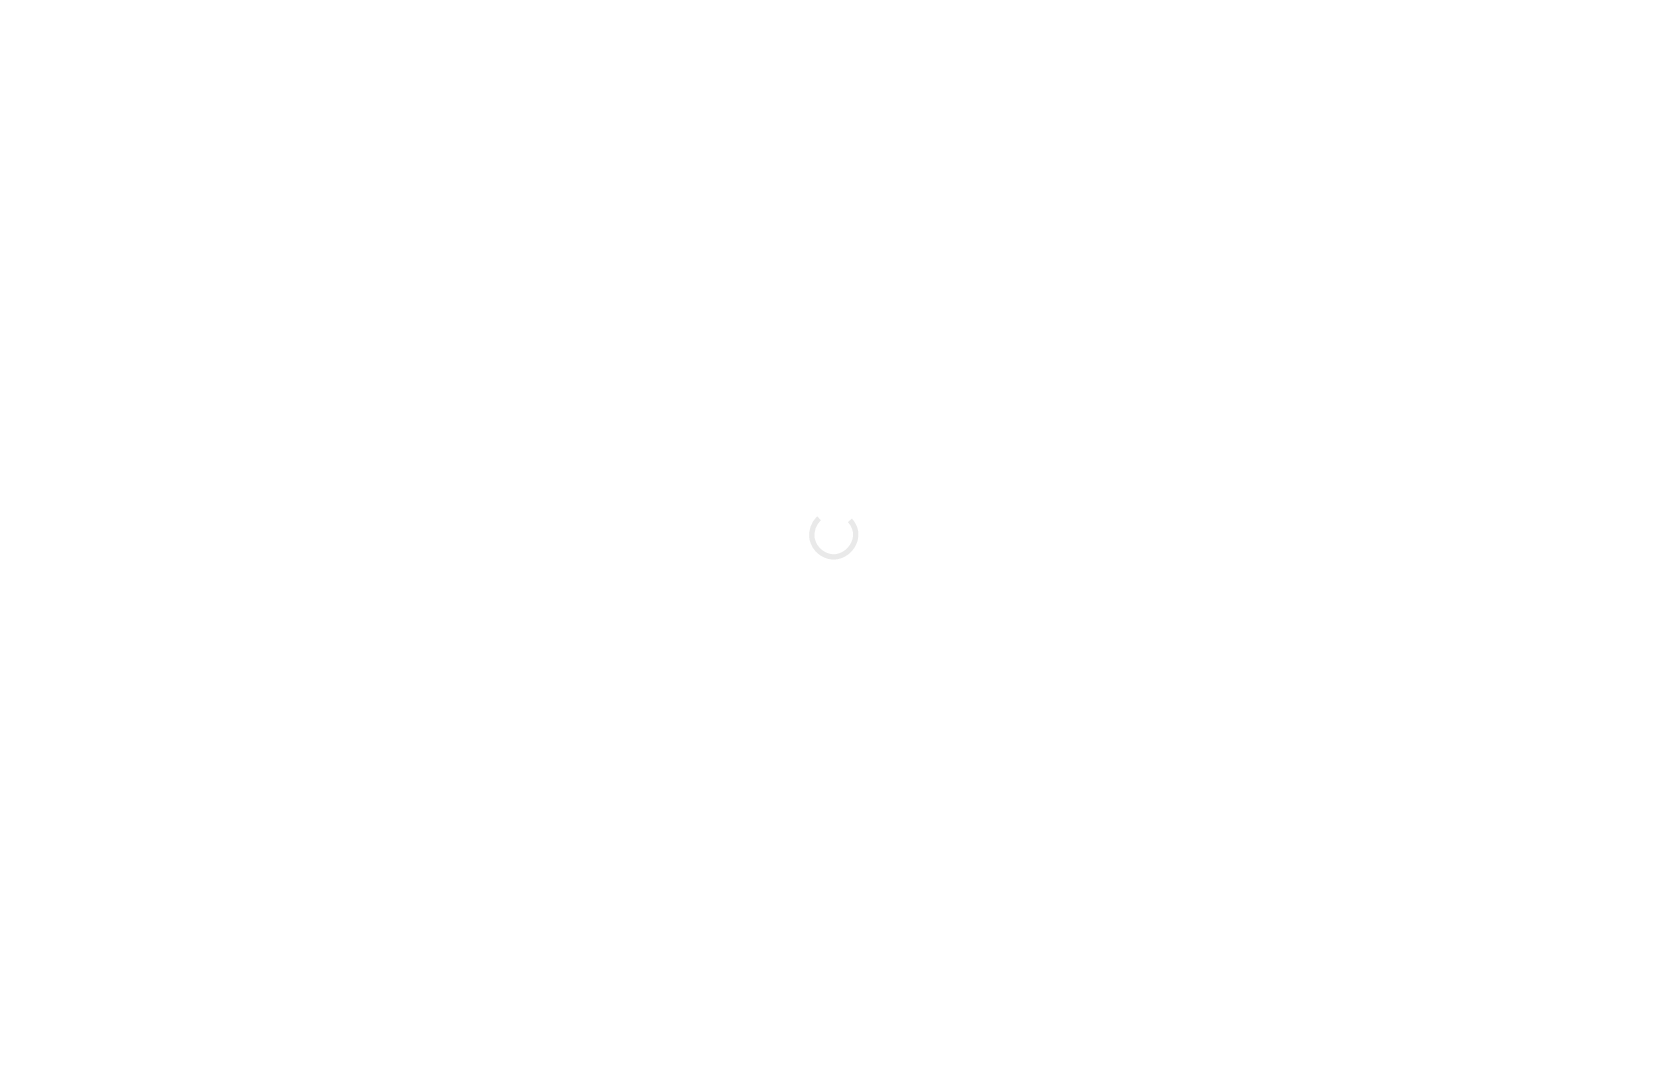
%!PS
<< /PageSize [1667 1070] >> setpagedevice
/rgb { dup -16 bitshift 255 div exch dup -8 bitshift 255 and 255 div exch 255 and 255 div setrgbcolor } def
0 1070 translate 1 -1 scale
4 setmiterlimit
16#FFFFFF rgb
0 0 1667 1070 rectfill
16#E9E9E9 rgb
5 setlinewidth
850 520.5 moveto 867.5 539.5 841.5 568 821 552.5 curveto 816 549 813 544 812 538 curveto 811 531 813.5 523.5 819 518.5 curveto stroke
showpage
